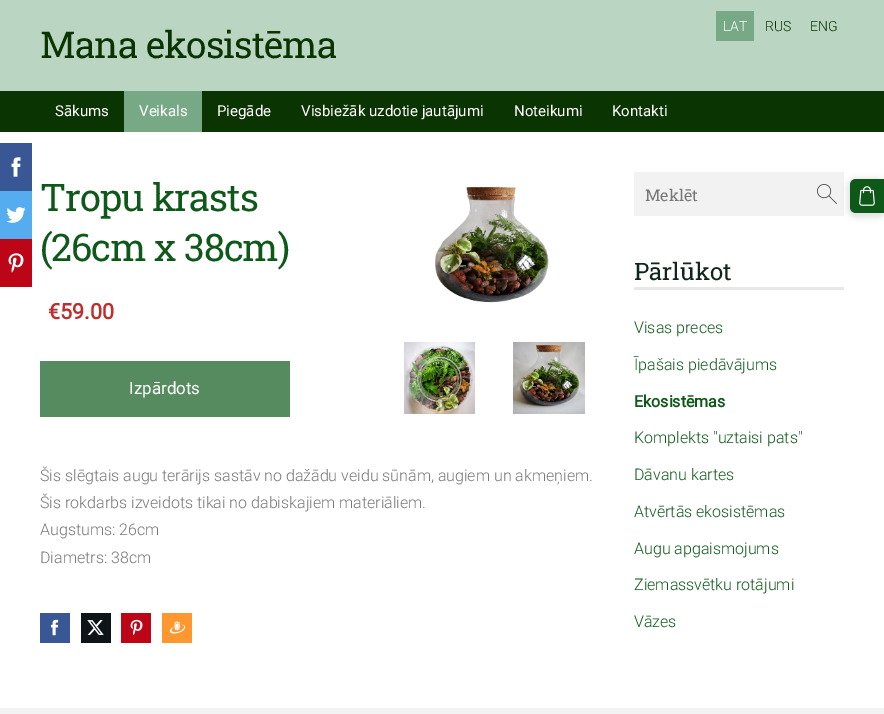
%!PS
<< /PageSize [884 714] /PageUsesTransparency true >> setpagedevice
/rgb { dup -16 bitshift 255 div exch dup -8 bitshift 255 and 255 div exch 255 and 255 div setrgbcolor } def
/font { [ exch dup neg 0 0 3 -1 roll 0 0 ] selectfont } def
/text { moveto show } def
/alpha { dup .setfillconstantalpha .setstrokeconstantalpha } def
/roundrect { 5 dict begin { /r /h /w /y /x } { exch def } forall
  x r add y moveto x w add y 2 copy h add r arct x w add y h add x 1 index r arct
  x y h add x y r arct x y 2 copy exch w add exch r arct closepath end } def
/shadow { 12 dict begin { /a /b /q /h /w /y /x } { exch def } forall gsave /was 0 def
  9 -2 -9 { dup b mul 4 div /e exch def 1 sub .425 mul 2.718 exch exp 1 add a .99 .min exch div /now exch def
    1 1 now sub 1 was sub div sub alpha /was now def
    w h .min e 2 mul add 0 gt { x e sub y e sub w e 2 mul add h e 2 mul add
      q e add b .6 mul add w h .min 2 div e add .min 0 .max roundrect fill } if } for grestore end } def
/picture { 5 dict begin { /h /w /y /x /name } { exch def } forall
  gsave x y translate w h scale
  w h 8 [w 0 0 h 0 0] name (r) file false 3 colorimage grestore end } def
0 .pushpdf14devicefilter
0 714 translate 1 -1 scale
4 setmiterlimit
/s1 { /Roboto-Light 14 font 16#FFFFFF rgb } def
/s2 { /Roboto-Light 14 font 16#0A3401 rgb } def
/s3 { /Roboto-Regular 15 font 16#FFFFFF rgb } def
/s4 { /Roboto-Bold 21.5 font 16#BC2F2F rgb } def
/s5 { /Roboto-Regular 17 font 16#FFFFFF rgb } def
/s6 { /Roboto-Light 16 font 16#777777 rgb } def
/s7 { /RobotoSlab-Regular 16 font 16#777777 rgb } def
/s8 { /RobotoSlab-Regular 24 font 16#102618 rgb } def
/s9 { /Roboto-Light 16 font 16#0E591A rgb } def
/s10 { /Roboto-Bold 16 font 16#0E591A rgb } def
16#F3F3F3 rgb
0 0 884 714 rectfill
16#FFFFFF rgb
0 132 884 576 rectfill
16#3A5795 rgb
0 143 32 48 rectfill
(pic1.raw) 11 157 10 20 picture
16#55ACEE rgb
0 191 32 48 rectfill
(pic2.raw) 6 207 20 16 picture
16#BC0618 rgb
0 239 32 48 rectfill
(pic3.raw) 8 253 16 20 picture
16#BAD6C2 rgb
0 0 884 91 rectfill
16#78A986 rgb
716 11 38 30 rectfill
s1
(LAT) 723 31 text
s2
(RUS) 765 31 text
(ENG) 810 31 text
/RobotoSlab-Regular 37 font
40 58 moveto -0.9 0 (Mana ekosistēma) ashow
0 91 884 41 rectfill
s3
(Sākums) 55 116 text
16#78A986 rgb
124 91 78 41 rectfill
s3
(Veikals) 139 116 text
(Piegāde) 217 116 text
(Visbiežāk uzdotie jautājumi) 301 116 text
(Noteikumi) 514 116 text
(Kontakti) 612 116 text
/RobotoSlab-Regular 38 font
16#0E591A rgb
40 211 moveto -1 0 (Tropu krasts) ashow
40 261 moveto -1 0 (\(26cm x 38cm\)) ashow
s4
(€59.00) 48 319 text
16#568B5F rgb
40 361 250 56 rectfill
s5
(Izpārdots) 129 394 text
s6
(Šis slēgtais augu terārijs sastāv no dažādu veidu sūnām, augiem un akmeņiem.) 40 481 text
(Šis rokdarbs izveidots tikai no dabiskajiem materiāliem.) 40 508 text
(Augstums: 26cm) 40 535 text
(Diametrs: 38cm) 40 563 text
16#3A5795 rgb
40 613 30 30 rectfill
(pic4.raw) 51 619 8 17 picture
16#0F1419 rgb
81 613 30 30 rectfill
(pic5.raw) 87 620 17 15 picture
16#BC0618 rgb
121 613 30 30 rectfill
(pic6.raw) 130 619 13 17 picture
16#FE972D rgb
162 613 30 30 rectfill
(pic7.raw) 169 621 17 13 picture
(pic8.raw) 435 187 114 116 picture
(pic9.raw) 404 342 71 72 picture
(pic10.raw) 513 342 72 72 picture
16#F2F2F2 rgb
634 172 210 44 rectfill
s7
(Meklēt) 645 201 text
(pic11.raw) 817 184 20 20 picture
16#E8E8E8 rgb
634 287 210 3 rectfill
s8
(Pārlūkot) 634 280 text
s9
(Visas preces) 634 333 text
(Īpašais piedāvājums) 634 370 text
s10
(Ekosistēmas) 634 407 text
s9
(Komplekts "uztaisi pats") 634 443 text
(Dāvanu kartes) 634 480 text
(Atvērtās ekosistēmas) 634 517 text
(Augu apgaismojums) 634 554 text
(Ziemassvētku rotājumi) 634 590 text
(Vāzes) 634 627 text
16#000000 rgb
847 178 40 40 9 2.5 0.1 shadow
16#0E591A rgb
856 179 moveto 884 179 lineto 884 213 lineto 856 213 lineto 852.5 213 850 210.5 850 207 curveto 850 185 lineto 850 181.5 852.5 179 856 179 curveto closepath fill
(pic12.raw) 859 186 16 20 picture
.poppdf14devicefilter showpage
